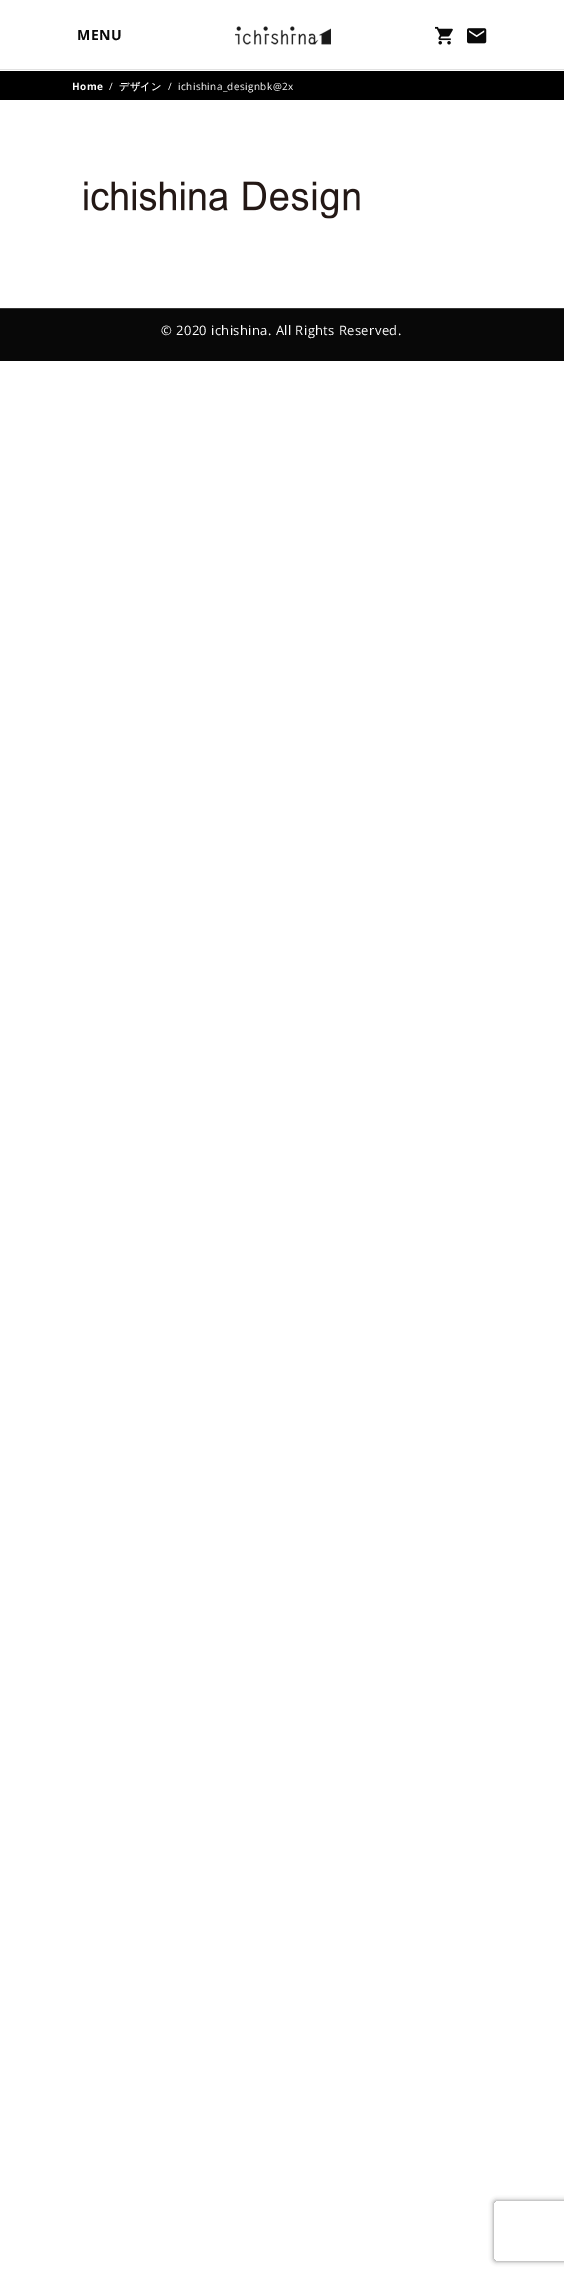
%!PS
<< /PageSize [564 2275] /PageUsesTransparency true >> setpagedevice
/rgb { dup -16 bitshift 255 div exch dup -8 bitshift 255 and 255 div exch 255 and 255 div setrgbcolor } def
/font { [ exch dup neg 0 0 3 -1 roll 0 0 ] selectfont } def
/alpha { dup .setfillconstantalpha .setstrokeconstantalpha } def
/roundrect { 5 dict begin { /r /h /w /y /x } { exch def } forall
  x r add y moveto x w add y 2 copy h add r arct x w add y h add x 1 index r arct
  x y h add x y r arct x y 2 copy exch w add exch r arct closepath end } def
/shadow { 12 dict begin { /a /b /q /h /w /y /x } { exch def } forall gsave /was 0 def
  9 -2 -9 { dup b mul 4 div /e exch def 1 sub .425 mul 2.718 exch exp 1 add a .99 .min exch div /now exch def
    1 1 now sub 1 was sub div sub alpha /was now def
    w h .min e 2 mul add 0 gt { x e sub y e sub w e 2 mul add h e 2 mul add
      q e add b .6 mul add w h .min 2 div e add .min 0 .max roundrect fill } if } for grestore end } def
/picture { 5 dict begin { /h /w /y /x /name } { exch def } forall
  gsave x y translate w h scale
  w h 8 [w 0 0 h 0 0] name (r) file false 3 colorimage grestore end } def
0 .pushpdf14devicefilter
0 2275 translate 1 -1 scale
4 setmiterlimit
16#FFFFFF rgb
0 0 564 2275 rectfill
16#E1E1E1 rgb
0 69 564 1 rectfill
/OpenSans-Bold 14 font
16#090909 rgb
77 40 moveto 0.4 0 (MENU) ashow
(pic1.raw) 235 26 96 19 picture
(pic2.raw) 435 26 18 19 picture
(pic3.raw) 467 28 20 16 picture
16#000000 rgb
0 71 564 29 rectfill
/OpenSans-Bold 10 font
16#FFFFFF rgb
72 90 moveto 0.4 0 (Home) ashow
/OpenSans-Regular 10 font
109 90 moveto 0.4 0 (/) ashow
/WenQuanYiZenHei-Bold 10 font
119 90 moveto 0.4 0 (デザイン) ashow
/OpenSans-Regular 10 font
168 90 moveto 0.4 0 (/) ashow
178 90 moveto 0.4 0 (ichishina_designbk@2x) ashow
(pic4.raw) 84 181 276 38 picture
16#080808 rgb
0 309 564 52 rectfill
16#363636 rgb
0 308 564 1 rectfill
/OpenSans-Regular 13 font
16#FFFFFF rgb
161 335 moveto 0.4 0 (© 2020 ichishina. All Rights Reserved.) ashow
gsave
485 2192 moveto 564 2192 lineto 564 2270 lineto 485 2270 lineto closepath 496 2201 moveto 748 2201 lineto 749 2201 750 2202 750 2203 curveto 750 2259 lineto 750 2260 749 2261 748 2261 curveto 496 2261 lineto 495 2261 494 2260 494 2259 curveto 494 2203 lineto 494 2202 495 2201 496 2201 curveto closepath eoclip newpath
16#808080 rgb
494 2201 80 60 2 2.5 1 shadow
grestore
.poppdf14devicefilter showpage
